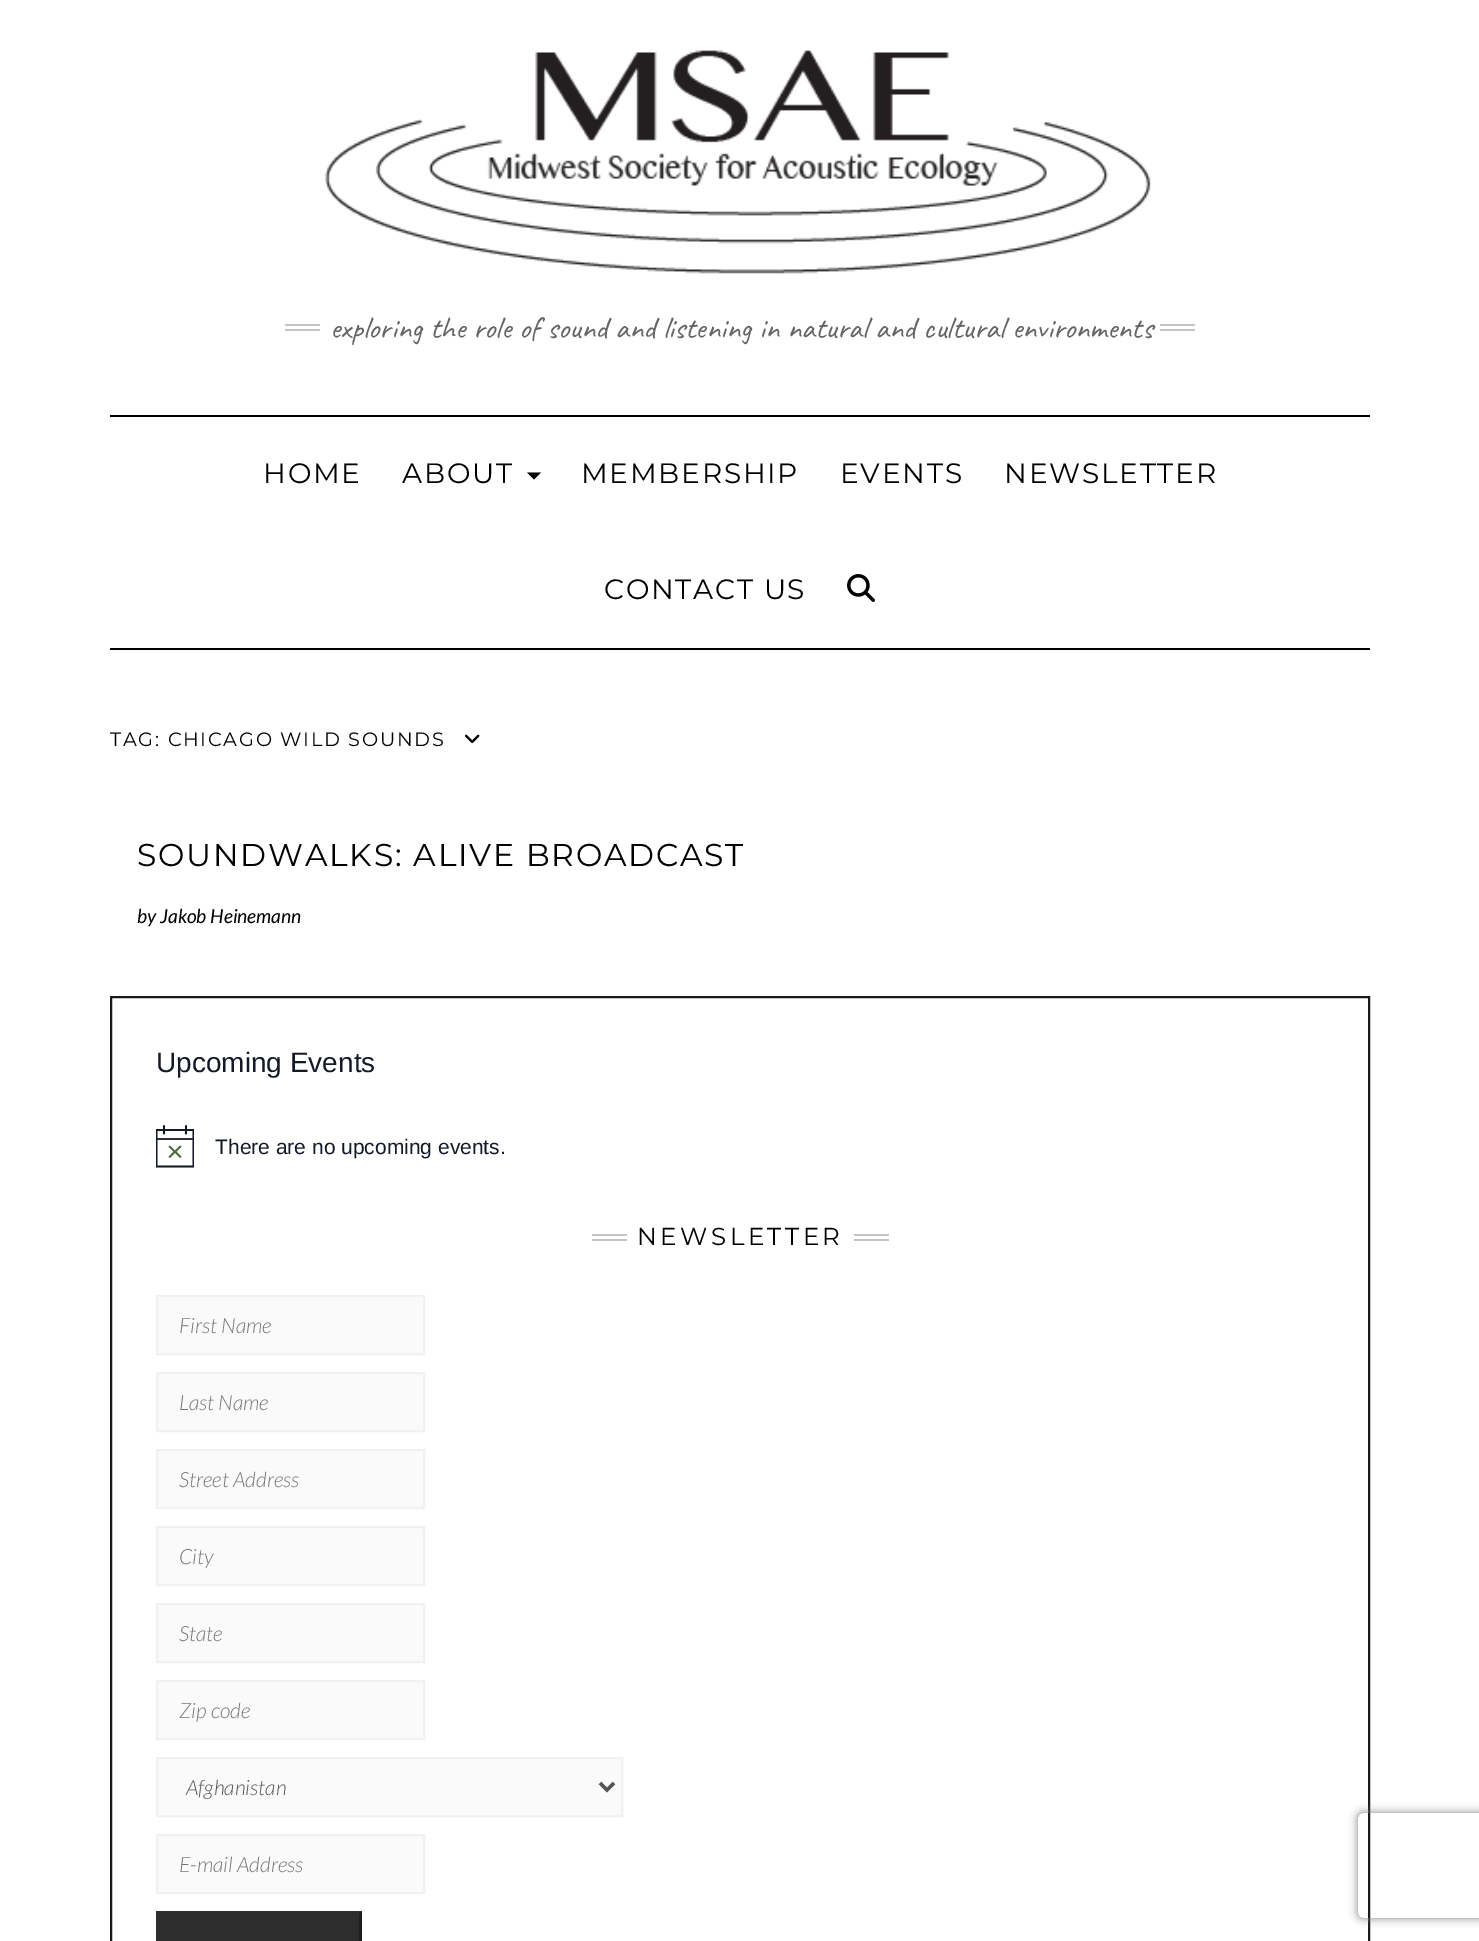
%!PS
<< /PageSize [1479 1941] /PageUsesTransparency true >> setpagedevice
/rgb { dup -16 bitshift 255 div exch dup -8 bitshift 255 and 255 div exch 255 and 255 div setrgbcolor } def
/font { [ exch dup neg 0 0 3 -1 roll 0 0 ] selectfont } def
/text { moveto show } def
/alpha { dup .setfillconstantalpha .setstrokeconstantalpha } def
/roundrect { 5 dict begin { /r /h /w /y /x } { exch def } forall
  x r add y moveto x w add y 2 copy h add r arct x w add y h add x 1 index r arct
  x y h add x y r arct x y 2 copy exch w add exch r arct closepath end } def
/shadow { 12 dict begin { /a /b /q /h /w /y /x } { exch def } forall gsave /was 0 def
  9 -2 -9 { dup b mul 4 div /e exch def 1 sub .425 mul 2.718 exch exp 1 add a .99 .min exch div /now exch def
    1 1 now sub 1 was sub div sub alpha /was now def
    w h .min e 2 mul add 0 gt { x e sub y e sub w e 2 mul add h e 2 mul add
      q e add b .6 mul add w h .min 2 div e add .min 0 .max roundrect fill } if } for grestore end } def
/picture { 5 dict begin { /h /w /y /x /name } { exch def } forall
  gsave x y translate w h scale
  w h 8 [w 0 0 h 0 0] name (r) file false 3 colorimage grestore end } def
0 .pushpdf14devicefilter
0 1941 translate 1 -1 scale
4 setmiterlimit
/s1 { /Lato-Italic 19.25 font 16#000000 rgb } def
/s2 { /LiberationSans-Regular 28 font 16#141827 rgb } def
/s3 { /LiberationSans-Regular 21 font 16#141827 rgb } def
/s4 { /Lato-LightItalic 21 font 16#757575 rgb } def
/s5 { /Lato-LightItalic 21 font 16#545454 rgb } def
16#FFFFFF rgb
0 0 1479 1941 rectfill
(pic1.raw) 325 50 826 224 picture
16#C4C4C4 rgb
285 324 35 2 rectfill
285 329 35 2 rectfill
/Caveat-Regular 31.5 font
16#646464 rgb
330 338 moveto 0.25 0 32 (exploring the role of sound and listening in natural and cultural environments) widthshow
16#C4C4C4 rgb
1160 324 35 2 rectfill
1160 329 35 2 rectfill
16#000000 rgb
110 415 1260 2 rectfill
110 648 1260 2 rectfill
/Montserrat-Regular 28 font
263 483 moveto 1.75 0 (HOME) ashow
402 483 moveto 1.75 0 (ABOUT) ashow
527 472.5 moveto 541 472.5 lineto 534 479.5 lineto closepath fill
581 483 moveto 1.75 0 (MEMBERSHIP) ashow
840 483 moveto 1.75 0 (EVENTS) ashow
1004 483 moveto 1.75 0 (NEWSLETTER) ashow
604 599 moveto 1.75 0 (CONTACT US) ashow
(pic2.raw) 847 574 28 28 picture
/Montserrat-Regular 19.25 font
110 746 moveto 1.75 0 (TAG: CHICAGO WILD SOUNDS) ashow
(pic3.raw) 465 734 15 10 picture
/Montserrat-Regular 31.5 font
137 866 moveto 1.75 0 (SOUNDWALKS: ALIVE BROADCAST) ashow
s1
(by Jakob Heinemann) 137 923 text
16#1A1A1A rgb
2 setlinewidth
111 997 1258 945 rectstroke
s2
(Upcoming Events) 156 1072 text
gsave
156 1125 38 44 rectclip
1.8 setlinewidth
156.5 1130 moveto 193.5 1130 lineto 193.5 1166.5 lineto 156.5 1166.5 lineto closepath stroke
grestore
16#4A6B3E rgb
1.8 setlinewidth
1 setlinecap
169.5 1146.5 moveto 180.5 1157 lineto 180.5 1146.5 moveto 169.5 1157 lineto stroke
16#141827 rgb
164 1126 moveto 164 1133.5 lineto 186 1126 moveto 186 1133.5 lineto stroke
0.9 alpha
156 1138 38 2 rectfill
1 alpha
s3
(There are no upcoming events.) 215 1154 text
16#C4C4C4 rgb
592 1234 35 2 rectfill
592 1239 35 2 rectfill
/Montserrat-Regular 24.5 font
16#000000 rgb
637 1245 moveto 3.5 0 (NEWSLETTER) ashow
16#C4C4C4 rgb
854 1234 35 2 rectfill
854 1239 35 2 rectfill
16#FAFAFA rgb
157 1296 moveto 424 1296 lineto 424 1354 lineto 157 1354 lineto closepath gsave fill grestore
16#F1F1F1 rgb
2 setlinewidth
0 setlinecap
stroke
s4
(First Name) 179 1333 text
16#FAFAFA rgb
157 1373 moveto 424 1373 lineto 424 1431 lineto 157 1431 lineto closepath gsave fill grestore
16#F1F1F1 rgb
stroke
s4
(Last Name) 179 1410 text
16#FAFAFA rgb
157 1450 moveto 424 1450 lineto 424 1508 lineto 157 1508 lineto closepath gsave fill grestore
16#F1F1F1 rgb
stroke
s4
(Street Address) 179 1487 text
16#FAFAFA rgb
157 1527 moveto 424 1527 lineto 424 1585 lineto 157 1585 lineto closepath gsave fill grestore
16#F1F1F1 rgb
stroke
s4
(City) 179 1564 text
16#FAFAFA rgb
157 1604 moveto 424 1604 lineto 424 1662 lineto 157 1662 lineto closepath gsave fill grestore
16#F1F1F1 rgb
stroke
s4
(State) 179 1641 text
16#FAFAFA rgb
157 1681 moveto 424 1681 lineto 424 1739 lineto 157 1739 lineto closepath gsave fill grestore
16#F1F1F1 rgb
stroke
s4
(Zip code) 179 1718 text
16#FAFAFA rgb
157 1758 moveto 622 1758 lineto 622 1816 lineto 157 1816 lineto closepath gsave fill grestore
16#F1F1F1 rgb
stroke
16#545454 rgb
3.5 setlinewidth
600 1783 moveto 607 1790 lineto 614 1783 lineto stroke
(Afghanistan) 186 1795 text
16#FAFAFA rgb
157 1835 moveto 424 1835 lineto 424 1893 lineto 157 1893 lineto closepath gsave fill grestore
16#F1F1F1 rgb
2 setlinewidth
stroke
s4
(E-mail Address) 179 1872 text
16#2D2D2D rgb
156 1911 206 30 rectfill
16#1E1E1E rgb
362 1911 moveto 362 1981 lineto 359 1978 lineto 359 1914 lineto closepath fill
gsave
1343 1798 moveto 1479 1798 lineto 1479 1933 lineto 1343 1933 lineto closepath 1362 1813 moveto 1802 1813 lineto 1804 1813 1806 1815 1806 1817 curveto 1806 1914 lineto 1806 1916 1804 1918 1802 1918 curveto 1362 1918 lineto 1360 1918 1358 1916 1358 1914 curveto 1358 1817 lineto 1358 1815 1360 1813 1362 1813 curveto closepath eoclip newpath
16#808080 rgb
1358 1813 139 105 4 4.5 1 shadow
grestore
.poppdf14devicefilter showpage
